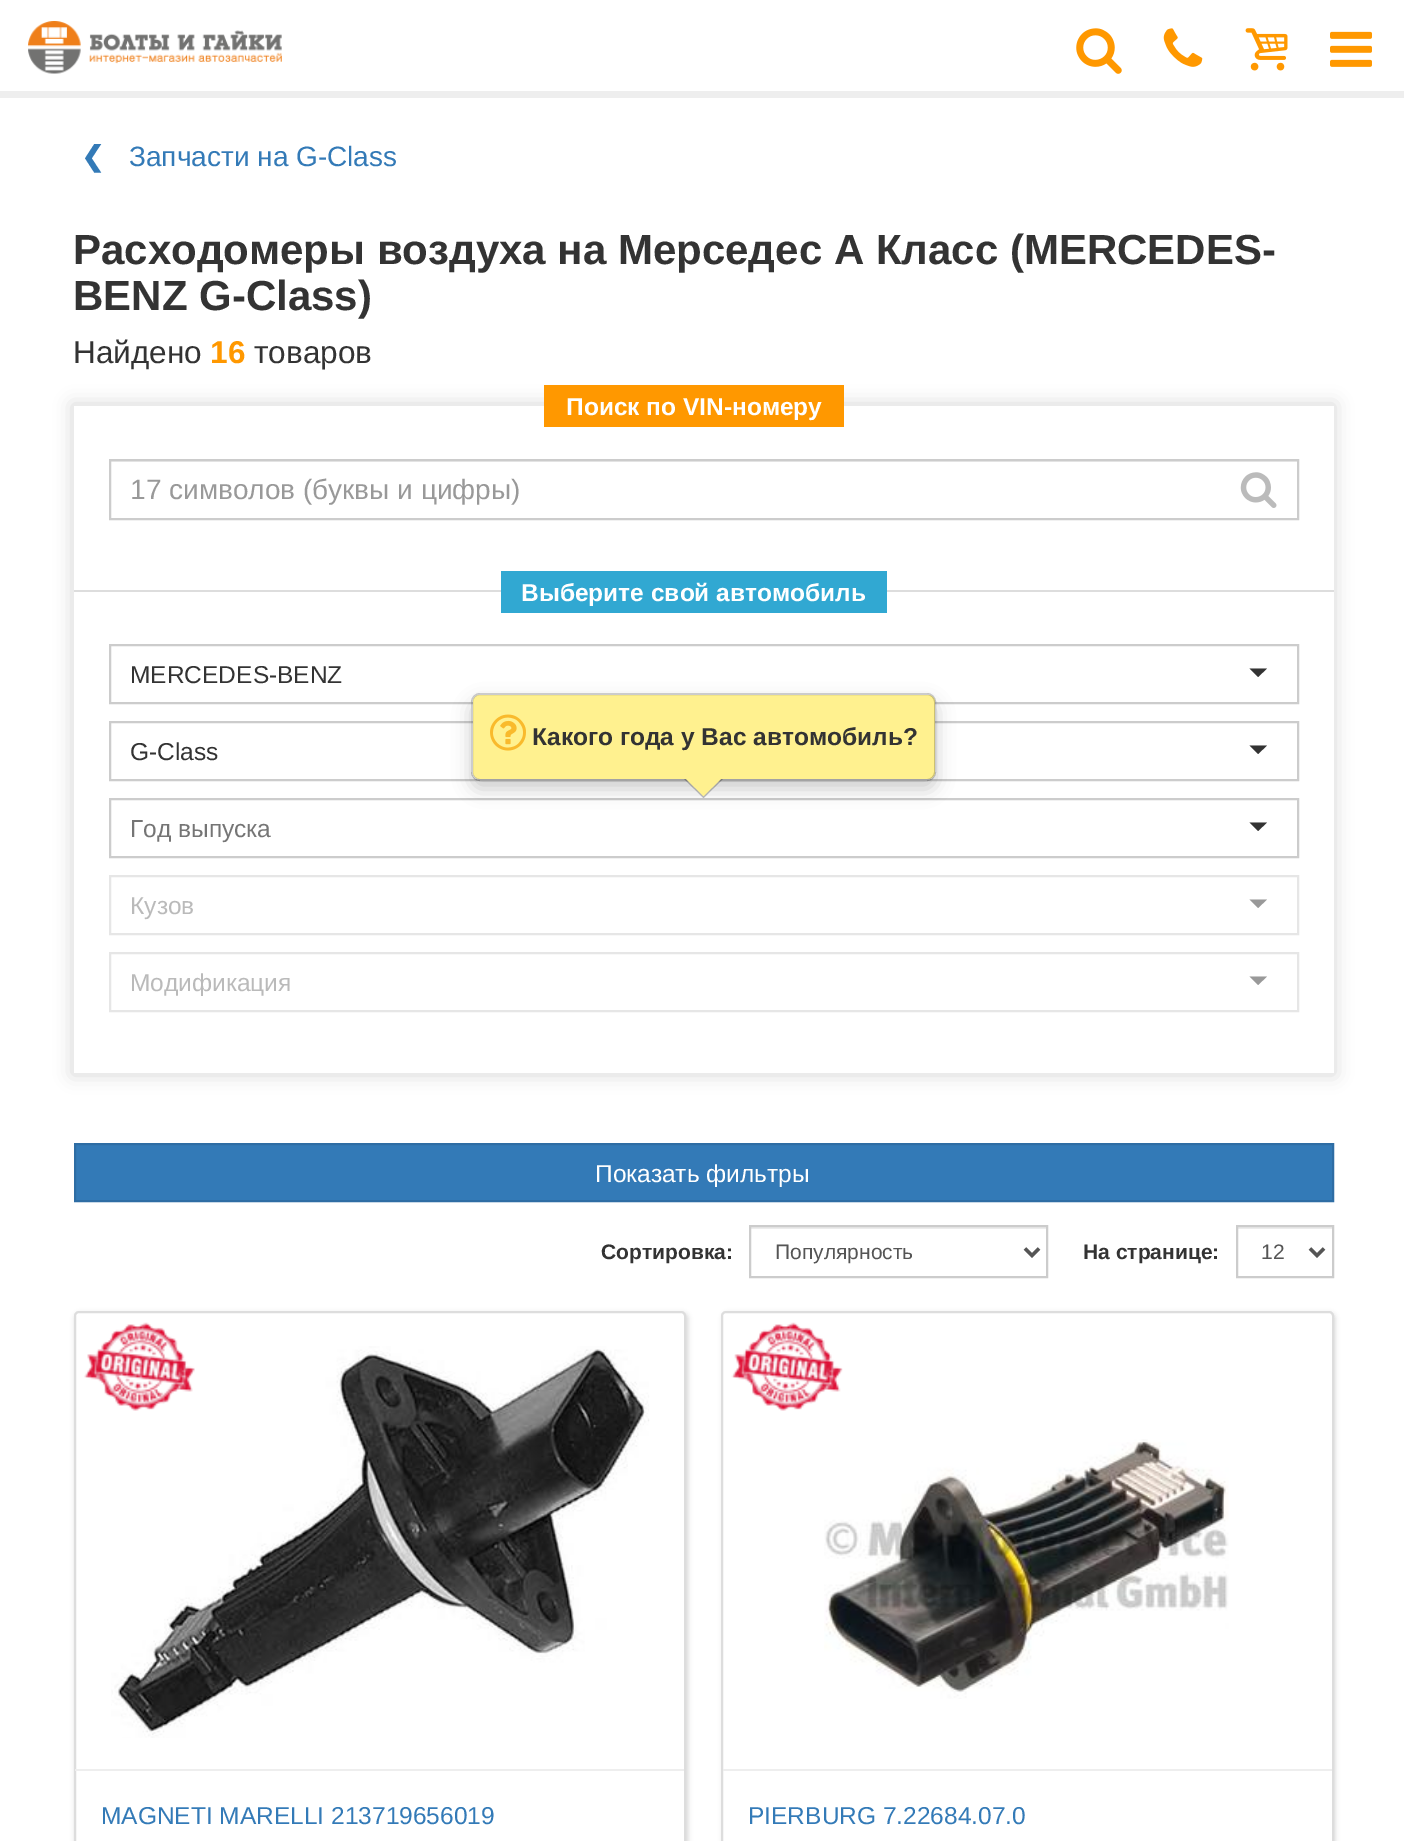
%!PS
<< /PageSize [1404 1841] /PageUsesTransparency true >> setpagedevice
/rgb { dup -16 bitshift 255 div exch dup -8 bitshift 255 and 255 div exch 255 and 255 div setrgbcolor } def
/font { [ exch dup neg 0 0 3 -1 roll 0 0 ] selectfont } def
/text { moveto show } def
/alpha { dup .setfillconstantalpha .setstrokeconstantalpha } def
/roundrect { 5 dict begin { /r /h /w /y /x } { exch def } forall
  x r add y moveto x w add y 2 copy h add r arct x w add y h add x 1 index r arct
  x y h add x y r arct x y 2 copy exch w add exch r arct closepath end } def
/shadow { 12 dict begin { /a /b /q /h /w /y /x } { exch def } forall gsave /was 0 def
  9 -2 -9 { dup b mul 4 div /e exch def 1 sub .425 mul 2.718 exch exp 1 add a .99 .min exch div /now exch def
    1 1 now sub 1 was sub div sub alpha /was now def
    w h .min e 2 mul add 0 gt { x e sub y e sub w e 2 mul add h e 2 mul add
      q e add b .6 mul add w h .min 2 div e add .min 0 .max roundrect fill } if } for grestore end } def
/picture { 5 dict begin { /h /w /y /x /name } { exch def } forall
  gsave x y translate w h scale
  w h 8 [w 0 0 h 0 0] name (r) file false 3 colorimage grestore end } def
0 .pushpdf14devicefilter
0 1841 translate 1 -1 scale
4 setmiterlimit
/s1 { /DejaVuSans-Bold 28 font 16#337AB7 rgb } def
/s2 { /LiberationSans-Regular 28 font 16#337AB7 rgb } def
/s3 { /LiberationSans-Bold 42 font 16#333333 rgb } def
/s4 { /LiberationSans-Regular 31.5 font 16#333333 rgb } def
/s5 { /LiberationSans-Bold 31.5 font 16#FF9800 rgb } def
/s6 { /LiberationSans-Bold 24.5 font 16#FFFFFF rgb } def
/s7 { /LiberationSans-Regular 28 font 16#999999 rgb } def
/s8 { /LiberationSans-Regular 24.5 font 16#333333 rgb } def
/s9 { /LiberationSans-Bold 24.5 font 16#333333 rgb } def
/s10 { /LiberationSans-Regular 24.5 font 16#757575 rgb } def
/s11 { /LiberationSans-Regular 24.5 font 16#BABABA rgb } def
/s12 { /LiberationSans-Regular 24.5 font 16#FFFFFF rgb } def
/s13 { /LiberationSans-Bold 21 font 16#333333 rgb } def
/s14 { /LiberationSans-Regular 21 font 16#555555 rgb } def
/s15 { /LiberationSans-Regular 24.5 font 16#337AB7 rgb } def
16#FFFFFF rgb
0 0 1404 1841 rectfill
16#EEEEEE rgb
0 91 1404 7 rectfill
(pic1.raw) 28 21 254 53 picture
(pic2.raw) 1076 28 46 46 picture
(pic3.raw) 1163 28 40 39 picture
(pic4.raw) 1245 28 43 43 picture
(pic5.raw) 1330 31 42 36 picture
s1
(❮) 81 166 text
s2
(Запчасти на G-Class) 129 166 text
s3
(Расходомеры воздуха на Мерседес А Класс \(MERCEDES-) 73 264 text
(BENZ G-Class\)) 73 310 text
s4
(Найдено) 73 363 text
s5
(16) 210 363 text
s4
(товаров) 254 363 text
gsave
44 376 moveto 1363 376 lineto 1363 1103 lineto 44 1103 lineto closepath 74 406 moveto 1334 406 lineto 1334 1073 lineto 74 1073 lineto closepath eoclip newpath
16#000000 rgb
72 404 1263 671 0 9 0.15 shadow
grestore
16#FF9800 rgb
544 385 300 42 rectfill
s6
(Поиск по VIN-номеру) 566 415 text
16#ECECEC rgb
110 461 1187 1 rectfill
16#CCCCCC rgb
2 setlinewidth
110 460 1188 59 rectstroke
s7
(17 символов \(буквы и цифры\)) 130 499 text
(pic6.raw) 1240 472 37 36 picture
16#DDDDDD rgb
74 590 1260 2 rectfill
16#31A8D2 rgb
501 571 386 42 rectfill
s6
(Выберите свой автомобиль) 521 601 text
16#CCCCCC rgb
110 645 1188 58 rectstroke
s8
(MERCEDES-BENZ) 130 683 text
1249.5 668.5 moveto 1267 668.5 lineto 1258 677 lineto closepath fill
16#CCCCCC rgb
110 722 1188 58 rectstroke
s8
(G-Class) 130 760 text
1249.5 745.5 moveto 1267 745.5 lineto 1258 754 lineto closepath fill
16#CCCCCC rgb
110 799 1188 58 rectstroke
gsave
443 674 moveto 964 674 lineto 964 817 lineto 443 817 lineto closepath 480 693 moveto 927 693 lineto 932 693 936 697 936 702 curveto 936 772 lineto 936 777 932 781 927 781 curveto 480 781 lineto 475 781 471 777 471 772 curveto 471 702 lineto 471 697 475 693 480 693 curveto closepath eoclip newpath
16#000000 rgb
471 702 465 87 9 9 0.2 shadow
grestore
16#FFF18F rgb
473 695 462 84 7 roundrect fill
0.2 alpha
16#000000 rgb
472 694 463 86 8 roundrect stroke
1 alpha
(pic7.raw) 490 714 36 37 picture
s9
(Какого года у Вас автомобиль?) 532 745 text
0.25 alpha
16#000000 rgb
684 779 moveto 723 779 lineto 703.5 798 lineto closepath fill
1 alpha
16#FFF18F rgb
686 779 moveto 721 779 lineto 703.5 796 lineto closepath fill
s10
(Год выпуска) 130 837 text
16#333333 rgb
1249.5 822.5 moveto 1267 822.5 lineto 1258 831 lineto closepath fill
16#E6E6E6 rgb
110 876 1188 58 rectstroke
s11
(Кузов) 130 914 text
16#999999 rgb
1249.5 899.5 moveto 1267 899.5 lineto 1258 908 lineto closepath fill
16#E6E6E6 rgb
110 953 1188 58 rectstroke
s11
(Модификация) 130 991 text
16#999999 rgb
1249.5 976.5 moveto 1267 976.5 lineto 1258 985 lineto closepath fill
16#337AB7 rgb
75 1144 moveto 1333 1144 lineto 1333 1201 lineto 75 1201 lineto closepath gsave fill grestore
16#2E6DA4 rgb
stroke
s12
(Показать фильтры) 595 1182 text
s13
(Сортировка:) 601 1259 text
16#ECECEC rgb
751 1227 296 2 rectfill
16#CCCCCC rgb
750 1226 297 51 rectstroke
16#555555 rgb
3.5 setlinewidth
1025 1248.5 moveto 1032 1255.5 lineto 1039 1248.5 lineto stroke
s14
(Популярность) 775 1259 text
s13
(На странице:) 1083 1259 text
16#ECECEC rgb
1237 1227 95 2 rectfill
16#CCCCCC rgb
2 setlinewidth
1237 1226 96 51 rectstroke
16#555555 rgb
3.5 setlinewidth
1310 1248.5 moveto 1317 1255.5 lineto 1324 1248.5 lineto stroke
s14
(12) 1261 1259 text
16#000000 rgb
75 1313 613 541 5 2.5 0.15 shadow
16#FFFFFF rgb
75 1312 610 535 4 roundrect gsave fill grestore
16#DDDDDD rgb
2 setlinewidth
stroke
(pic9.raw) 111 1346 539 392 picture
(pic8.raw) 84 1322 111 89 picture
16#EEEEEE rgb
75 1769 609 2 rectfill
s15
(MAGNETI MARELLI 213719656019) 101 1824 text
16#000000 rgb
723 1313 612 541 5 2.5 0.15 shadow
16#FFFFFF rgb
722 1312 611 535 4 roundrect gsave fill grestore
16#DDDDDD rgb
stroke
(pic10.raw) 731 1322 112 89 picture
16#EEEEEE rgb
723 1769 609 2 rectfill
(pic11.raw) 824 1439 405 260 picture
s15
(PIERBURG 7.22684.07.0) 748 1824 text
.poppdf14devicefilter showpage
